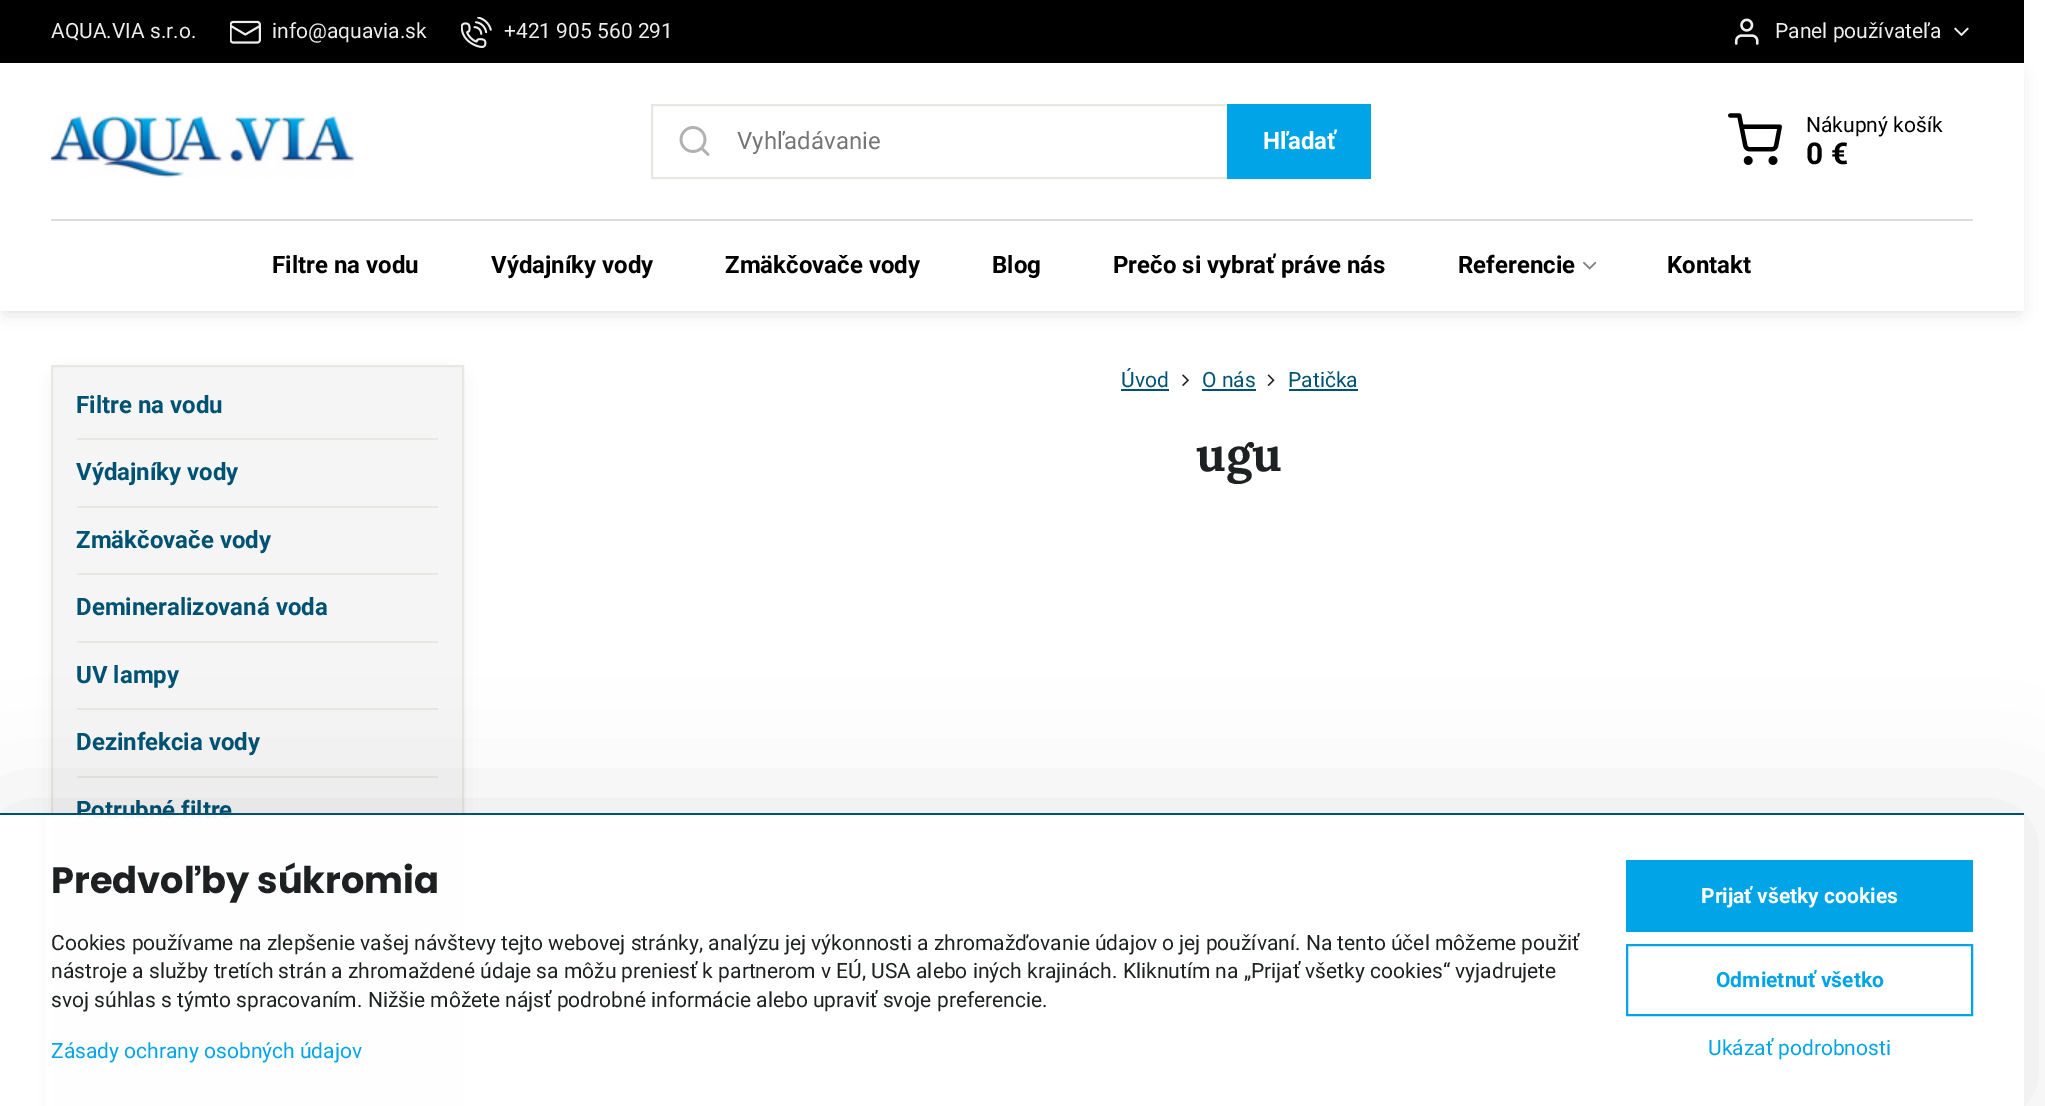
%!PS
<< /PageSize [2045 1106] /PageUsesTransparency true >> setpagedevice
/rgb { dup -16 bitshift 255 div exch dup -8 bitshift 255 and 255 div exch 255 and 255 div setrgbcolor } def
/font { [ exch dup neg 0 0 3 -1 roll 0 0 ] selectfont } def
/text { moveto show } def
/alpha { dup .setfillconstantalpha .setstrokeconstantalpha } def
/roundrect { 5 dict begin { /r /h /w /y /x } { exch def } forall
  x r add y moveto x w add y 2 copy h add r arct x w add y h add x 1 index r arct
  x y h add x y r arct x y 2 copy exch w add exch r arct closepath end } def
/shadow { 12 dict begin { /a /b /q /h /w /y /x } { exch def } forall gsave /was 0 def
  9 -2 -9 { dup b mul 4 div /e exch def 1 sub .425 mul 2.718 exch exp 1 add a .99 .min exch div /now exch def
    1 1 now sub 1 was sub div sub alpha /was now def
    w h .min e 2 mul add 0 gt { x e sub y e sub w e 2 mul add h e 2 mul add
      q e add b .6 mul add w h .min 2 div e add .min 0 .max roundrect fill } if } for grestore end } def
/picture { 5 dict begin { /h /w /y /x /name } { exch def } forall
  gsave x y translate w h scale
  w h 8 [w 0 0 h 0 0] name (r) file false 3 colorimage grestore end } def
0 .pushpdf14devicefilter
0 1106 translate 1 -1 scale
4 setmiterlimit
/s1 { /Roboto-Regular 21 font 16#EEEEEE rgb } def
/s2 { /Roboto-Regular 24 font 16#757575 rgb } def
/s3 { /Roboto-Bold 24 font 16#FFFFFF rgb } def
/s4 { /Roboto-Regular 21 font 16#000000 rgb } def
/s5 { /Roboto-Bold 30 font 16#000000 rgb } def
/s6 { /Roboto-Bold 24 font 16#000000 rgb } def
/s7 { /Roboto-Bold 24 font 16#005273 rgb } def
/s8 { /Roboto-Regular 21 font 16#005273 rgb } def
/s9 { /Lora-Bold 48 font 16#1D2122 rgb } def
/s10 { /Poppins-Bold 36.75 font 16#1D2122 rgb } def
/s11 { /Roboto-Regular 21 font 16#1D2122 rgb } def
/s12 { /Roboto-Regular 21 font 16#01A4E6 rgb } def
/s13 { /Roboto-Bold 21 font 16#FFFFFF rgb } def
/s14 { /Roboto-Bold 21 font 16#01A4E6 rgb } def
16#FFFFFF rgb
0 0 2045 1106 rectfill
16#000000 rgb
0 0 2024 63 rectfill
s1
(AQUA.VIA s.r.o.) 51 38 text
(pic1.raw) 230 20 31 24 picture
(info@aquavia.sk) 272 38 text
(pic2.raw) 461 17 31 31 picture
(+421 905 560 291) 504 38 text
(pic3.raw) 1734 18 25 27 picture
(Panel používateľa) 1775 38 text
(pic4.raw) 1954 27 15 9 picture
16#000014 rgb
6 75 2012 236 0 9 0.15 shadow
16#FFFFFF rgb
0 63 2024 248 rectfill
(pic5.raw) 50 115 304 63 picture
16#E8E7E2 rgb
2 setlinewidth
652 105 718 73 rectstroke
(pic6.raw) 679 126 31 30 picture
s2
(Vyhľadávanie) 737 149 text
16#01A4E6 rgb
1227 104 144 75 rectfill
s3
(Hľadať) 1263 149 text
(pic7.raw) 1728 113 54 52 picture
s4
(Nákupný košík) 1806 132 text
s5
(0 €) 1806 164 text
16#DDDDDD rgb
51 219 1922 2 rectfill
s6
(Filtre na vodu) 272 273 text
(Výdajníky vody) 491 273 text
(Zmäkčovače vody) 725 273 text
(Blog) 992 273 text
(Prečo si vybrať práve nás) 1113 273 text
(Referencie) 1458 273 text
(pic8.raw) 1583 261 14 9 picture
(Kontakt) 1667 273 text
16#000014 rgb
63 383 389 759 0 12 0.15 shadow
16#F5F5F5 rgb
52 366 moveto 463 366 lineto 463 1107 lineto 52 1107 lineto closepath gsave fill grestore
16#E8E7E2 rgb
stroke
77 438 361 2 rectfill
s7
(Filtre na vodu) 76 413 text
16#E8E7E2 rgb
77 506 361 2 rectfill
s7
(Výdajníky vody) 76 480 text
16#E8E7E2 rgb
77 573 361 2 rectfill
s7
(Zmäkčovače vody) 76 548 text
16#E8E7E2 rgb
77 641 361 2 rectfill
s7
(Demineralizovaná voda) 76 615 text
16#E8E7E2 rgb
77 708 361 2 rectfill
s7
(UV lampy) 76 683 text
16#E8E7E2 rgb
77 776 361 2 rectfill
s7
(Dezinfekcia vody) 76 750 text
16#E8E7E2 rgb
77 843 361 2 rectfill
s7
(Potrubné filtre) 76 818 text
16#E8E7E2 rgb
77 911 361 2 rectfill
77 978 361 2 rectfill
77 1046 361 2 rectfill
s8
(Úvod) 1121 387 text
1121 389 48 2 rectfill
(pic9.raw) 1182 374 7 12 picture
(O nás) 1202 387 text
1202 389 54 2 rectfill
(pic10.raw) 1267 374 8 12 picture
(Patička) 1288 387 text
1289 389 69 2 rectfill
s9
(ugu) 1196 471 text
gsave
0 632 moveto 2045 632 lineto 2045 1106 lineto 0 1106 lineto closepath 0 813 moveto 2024 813 lineto 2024 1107 lineto 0 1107 lineto closepath eoclip newpath
16#000000 rgb
0 813 2024 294 0 60 0.1 shadow
grestore
0.95 alpha
16#FFFFFF rgb
46 815 1978 291 rectfill
1 alpha
16#005273 rgb
0 813 2024 2 rectfill
s10
(Predvoľby súkromia) 51 893 text
s11
(Cookies používame na zlepšenie vašej návštevy tejto webovej stránky, analýzu jej výkonnosti a zhromažďovanie údajov o jej používaní. Na tento účel môžeme použiť) 51 950 text
(nástroje a služby tretích strán a zhromaždené údaje sa môžu preniesť k partnerom v EÚ, USA alebo iných krajinách. Kliknutím na „Prijať všetky cookies“ vyjadrujete) 51 978 text
(svoj súhlas s týmto spracovaním. Nižšie môžete nájsť podrobné informácie alebo upraviť svoje preferencie.) 51 1007 text
s12
(Zásady ochrany osobných údajov) 51 1058 text
1626 860 347 72 rectfill
s13
(Prijať všetky cookies) 1701 903 text
16#01A4E6 rgb
1627 945 345 70 rectstroke
(Odmietnuť všetko) 1716 987 text
s12
(Ukázať podrobnosti) 1708 1055 text
.poppdf14devicefilter showpage
